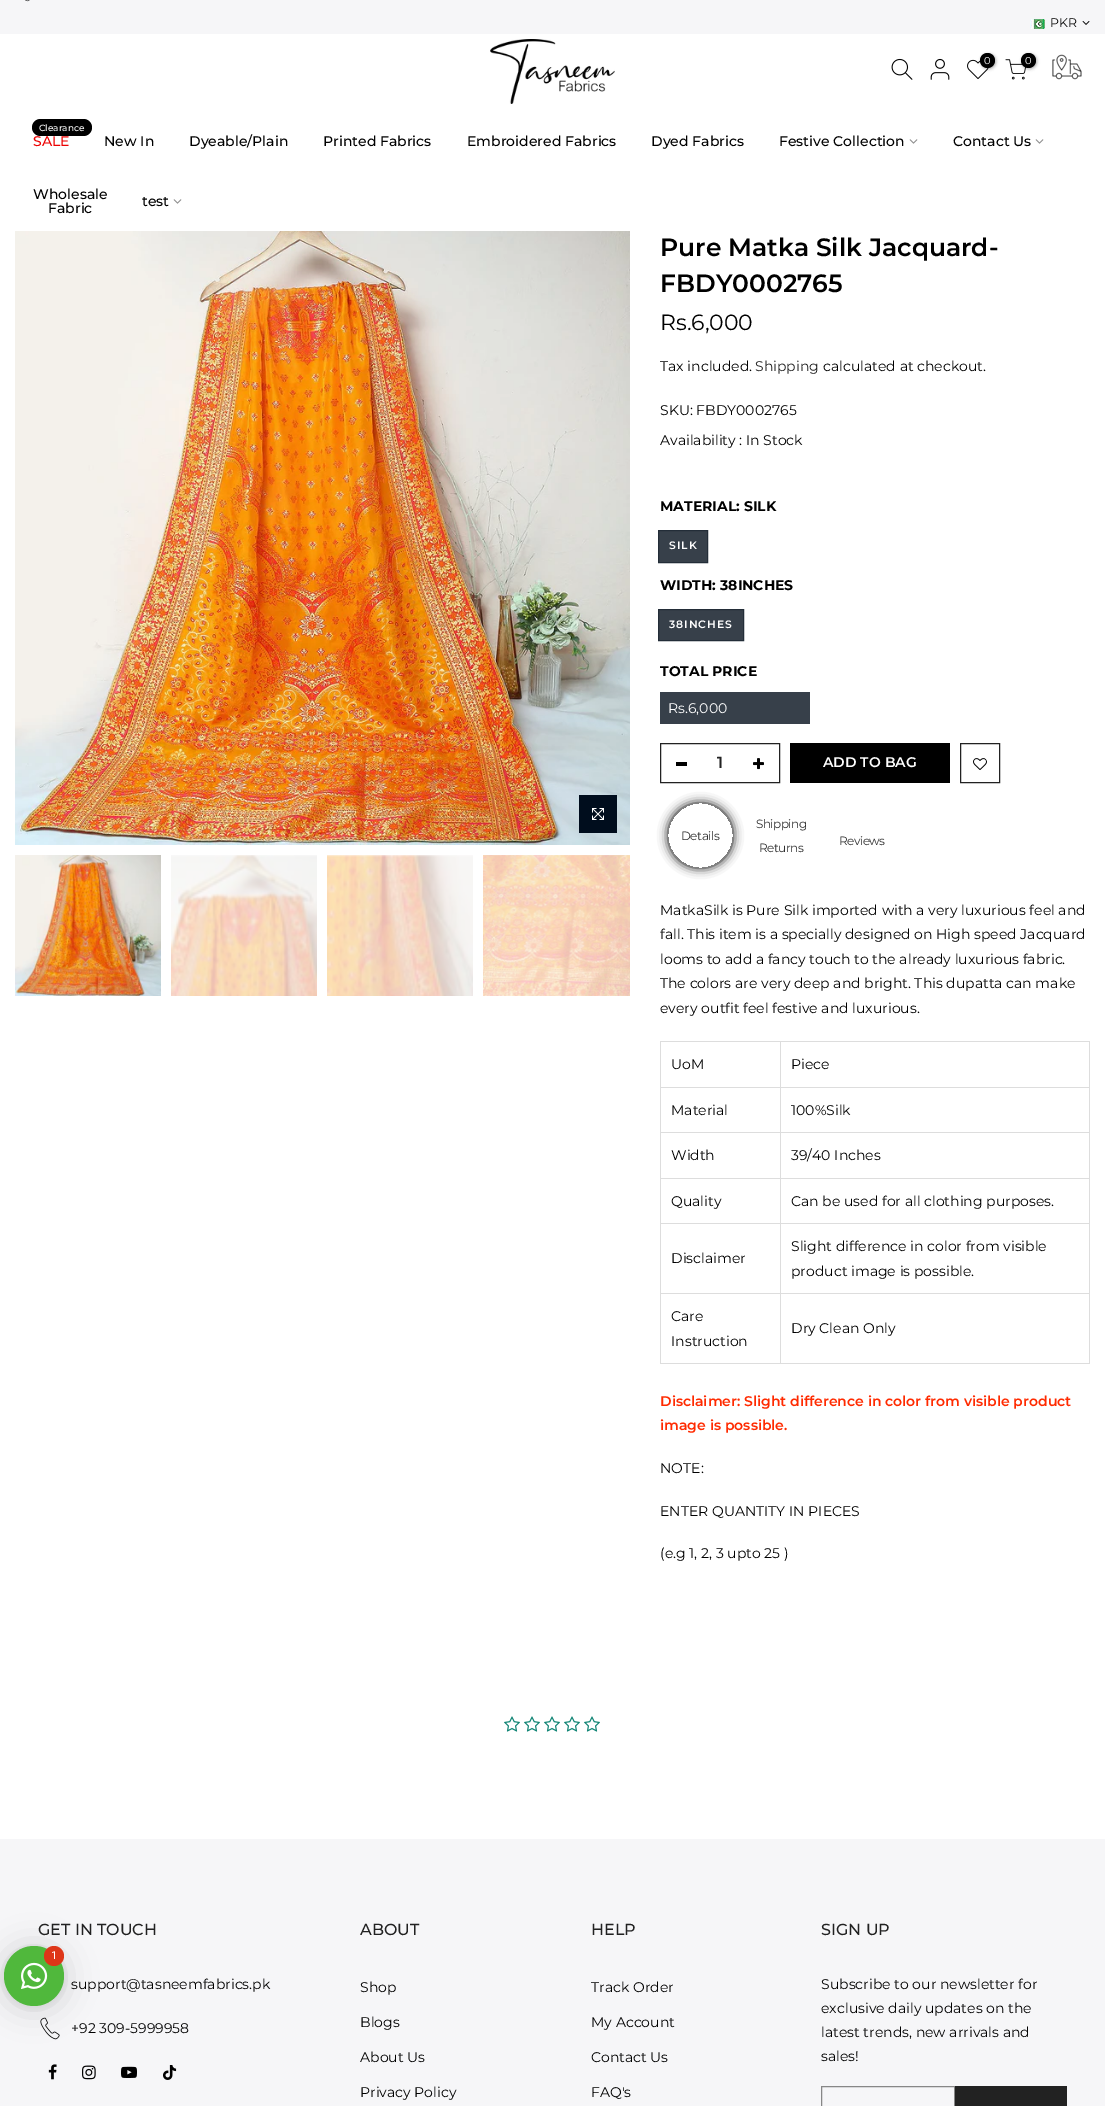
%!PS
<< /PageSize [1105 2106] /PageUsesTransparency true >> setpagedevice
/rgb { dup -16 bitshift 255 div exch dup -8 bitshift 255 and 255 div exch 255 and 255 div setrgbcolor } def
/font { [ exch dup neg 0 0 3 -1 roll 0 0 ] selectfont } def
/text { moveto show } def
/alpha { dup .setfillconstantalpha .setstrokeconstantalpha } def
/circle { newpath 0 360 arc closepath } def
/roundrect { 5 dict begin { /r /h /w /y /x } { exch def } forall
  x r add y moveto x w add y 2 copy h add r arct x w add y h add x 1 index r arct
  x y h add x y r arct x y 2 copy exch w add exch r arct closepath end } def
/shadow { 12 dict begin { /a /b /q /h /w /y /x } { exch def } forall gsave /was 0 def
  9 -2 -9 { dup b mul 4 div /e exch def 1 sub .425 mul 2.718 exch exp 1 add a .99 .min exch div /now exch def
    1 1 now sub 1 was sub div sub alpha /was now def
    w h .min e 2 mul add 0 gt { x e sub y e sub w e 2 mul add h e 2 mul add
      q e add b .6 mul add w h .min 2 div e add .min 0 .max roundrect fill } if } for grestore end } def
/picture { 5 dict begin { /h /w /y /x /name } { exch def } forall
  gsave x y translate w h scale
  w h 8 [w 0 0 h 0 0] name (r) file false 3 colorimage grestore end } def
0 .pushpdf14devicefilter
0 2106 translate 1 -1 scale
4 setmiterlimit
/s1 { /Montserrat-Regular 12.5 font 16#000000 rgb } def
/s2 { /Montserrat-Regular 10 font 16#FFFFFF rgb } def
/s3 { /Montserrat-Medium 9 font 16#FFFFFF rgb } def
/s4 { /Montserrat-Medium 14 font 16#EC0101 rgb } def
/s5 { /Montserrat-Medium 14 font 16#000000 rgb } def
/s6 { /Montserrat-SemiBold 25 font 16#000000 rgb } def
/s7 { /Montserrat-Regular 22 font 16#000000 rgb } def
/s8 { /Montserrat-Regular 14 font 16#000000 rgb } def
/s9 { /Montserrat-Regular 14 font 16#222222 rgb } def
/s10 { /Montserrat-Bold 14 font 16#000000 rgb } def
/s11 { /Montserrat-Regular 14 font 16#FFFFFF rgb } def
/s12 { /Montserrat-SemiBold 16 font 16#222222 rgb } def
/s13 { /Montserrat-SemiBold 14 font 16#FFFFFF rgb } def
/s14 { /Montserrat-SemiBold 14 font 16#FF2A00 rgb } def
/s15 { /Montserrat-Medium 16 font 16#222222 rgb } def
/s16 { /Roboto-Regular 11 font 16#FFFFFF rgb } def
16#FFFFFF rgb
0 0 1105 2106 rectfill
16#F6F6F8 rgb
0 0 1105 34 rectfill
(pic1.raw) 25 0 5 2 picture
(pic2.raw) 1030 19 15 10 picture
s1
(PKR) 1050 27 text
(pic3.raw) 1082 21 8 4 picture
(pic4.raw) 490 39 125 65 picture
(pic5.raw) 891 58 22 22 picture
(pic6.raw) 930 58 20 22 picture
(pic7.raw) 967 59 22 20 picture
981 54 15 15 7.5 1.5 0.3 shadow
987.5 60.5 7.5 circle fill
s2
(0) 984 64 text
(pic8.raw) 1005 59 21 21 picture
16#000000 rgb
1022 54 15 15 7.5 1.5 0.3 shadow
1028.5 60.5 7.5 circle fill
s2
(0) 1025 64 text
(pic9.raw) 1052 54 30 26 picture
16#000000 rgb
32 119 60 17 8.5 roundrect fill
s3
(Clearance) 39 131 text
s4
(SALE) 33 146 text
s5
(New In) 104 146 text
(Dyeable/Plain) 189 146 text
(Printed Fabrics) 323 146 text
(Embroidered Fabrics) 467 146 text
(Dyed Fabrics) 651 146 text
(Festive Collection) 779 146 text
(pic10.raw) 909 139 9 5 picture
(Contact Us) 953 146 text
(pic10.raw) 1035 139 9 5 picture
(Wholesale) 33 199 text
(Fabric) 48 213 text
(test) 142 206 text
(pic10.raw) 173 199 9 5 picture
(pic11.raw) 15 231 615 614 picture
16#000D1D rgb
579 795 38 38 rectfill
(pic12.raw) 592 808 12 12 picture
(pic13.raw) 15 855 146 141 picture
16#FCFCFC rgb
171 855 146 141 rectfill
(pic14.raw) 171 855 146 141 picture
327 855 146 141 rectfill
(pic15.raw) 327 855 146 141 picture
483 855 147 141 rectfill
(pic16.raw) 483 855 147 141 picture
s6
(Pure Matka Silk Jacquard-) 660 256 text
(FBDY0002765) 660 292 text
s7
(Rs.6,000) 660 330 text
s8
(Tax included.) 660 371 text
s9
(Shipping) 755 371 text
s8
(calculated at checkout.) 823 371 text
(SKU: FBDY0002765) 660 415 text
(Availability : In Stock) 660 445 text
s10
(MATERIAL: SILK) 660 511 text
16#37404A rgb
658.5 530.5 moveto 707.5 530.5 lineto 707.5 562.5 lineto 658.5 562.5 lineto closepath gsave fill grestore
16#232D38 rgb
stroke
/Montserrat-SemiBold 10.75 font
16#FFFFFF rgb
669 549 moveto 1 0 (SILK) ashow
s10
(WIDTH: 38INCHES) 660 590 text
16#37404A rgb
658.5 609.5 moveto 743.5 609.5 lineto 743.5 640.5 lineto 658.5 640.5 lineto closepath gsave fill grestore
16#232D38 rgb
stroke
/Montserrat-SemiBold 10.75 font
16#FFFFFF rgb
669 628 moveto 1 0 (38INCHES) ashow
s10
(TOTAL PRICE) 660 676 text
16#37404A rgb
660 692 150 32 rectfill
s11
(Rs.6,000) 668 713 text
16#222222 rgb
660.5 743.5 119 39 rectstroke
s12
(1) 717 768 text
16#000000 rgb
676 762 11 4 rectfill
(pic17.raw) 753 758 11 12 picture
790 743 160 40 rectfill
s13
(ADD TO BAG) 823 767 text
16#222222 rgb
960.5 743.5 39 39 rectstroke
(pic18.raw) 973 758 14 12 picture
16#FFFFFF rgb
974 758 moveto 976 756 979 755 981.5 755.5 curveto 991.5 757.5 990 772.5 980 772.5 curveto 978 772.5 975.5 771.5 974 770 curveto 974 770 moveto 970.5 766.5 970.5 761.5 974 758 curveto stroke
gsave
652 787 moveto 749 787 lineto 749 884 lineto 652 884 lineto closepath 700.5 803 moveto 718.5 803 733 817.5 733 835.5 curveto 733 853.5 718.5 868 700.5 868 curveto 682.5 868 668 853.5 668 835.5 curveto 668 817.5 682.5 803 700.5 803 curveto closepath eoclip newpath
16#000000 rgb
668 803 65 65 32.5 5 1 shadow
grestore
/Montserrat-Regular 12 font
16#303030 rgb
681 840 moveto -0.5 0 (Details) ashow
756 828 moveto -0.5 0 (Shipping) ashow
759 852 moveto -0.5 0 (Returns) ashow
839 845 moveto -0.5 0 (Reviews) ashow
s8
(MatkaSilk is Pure Silk imported with a very luxurious feel and) 660 915 text
(fall. This item is a specially designed on High speed Jacquard) 660 939 text
(looms to add a fancy touch to the already luxurious fabric.) 660 964 text
(The colors are very deep and bright. This dupatta can make) 660 988 text
(every outfit feel festive and luxurious.) 660 1013 text
16#DDDDDD rgb
660 1041 430 1 rectfill
660 1041 1 323 rectfill
1089 1041 1 323 rectfill
780 1363 310 1 rectfill
780 1293 1 71 rectfill
780 1293 310 1 rectfill
780 1223 1 71 rectfill
780 1223 310 1 rectfill
780 1178 1 46 rectfill
780 1178 310 1 rectfill
780 1132 1 47 rectfill
780 1132 310 1 rectfill
780 1087 1 46 rectfill
780 1087 310 1 rectfill
780 1041 1 47 rectfill
660 1087 121 1 rectfill
s8
(UoM) 671 1069 text
(Piece) 791 1069 text
16#DDDDDD rgb
660 1132 121 1 rectfill
s8
(Material) 671 1115 text
(100%Silk) 791 1115 text
16#DDDDDD rgb
660 1178 121 1 rectfill
s8
(Width) 671 1160 text
(39/40 Inches) 791 1160 text
16#DDDDDD rgb
660 1223 121 1 rectfill
s8
(Quality) 671 1206 text
(Can be used for all clothing purposes.) 791 1206 text
16#DDDDDD rgb
660 1293 121 1 rectfill
s8
(Disclaimer) 671 1263 text
(Slight difference in color from visible) 791 1251 text
(product image is possible.) 791 1276 text
16#DDDDDD rgb
660 1363 121 1 rectfill
s8
(Care) 671 1321 text
(Instruction) 671 1346 text
(Dry Clean Only) 791 1333 text
s14
(Disclaimer: Slight difference in color from visible product) 660 1406 text
(image is possible.) 660 1430 text
s8
(NOTE:) 660 1473 text
(ENTER QUANTITY IN PIECES) 660 1516 text
(\(e.g 1, 2, 3 upto 25 \)) 660 1558 text
(pic19.raw) 504 1716 16 16 picture
(pic19.raw) 524 1716 16 16 picture
(pic19.raw) 544 1716 16 16 picture
(pic19.raw) 564 1716 16 16 picture
(pic19.raw) 584 1716 16 16 picture
16#F6F6F8 rgb
0 1839 1105 267 rectfill
s15
(GET IN TOUCH) 38 1935 text
s8
(support@tasneemfabrics.pk) 71 1989 text
(pic20.raw) 40 2017 20 23 picture
(+92 309-5999958) 71 2033 text
(pic21.raw) 48 2064 9 16 picture
(pic22.raw) 82 2065 14 15 picture
(pic23.raw) 121 2066 16 12 picture
(pic24.raw) 163 2065 14 15 picture
s15
(ABOUT) 360 1935 text
s8
(Shop) 360 1992 text
(Blogs) 360 2027 text
(About Us) 360 2062 text
(Privacy Policy) 360 2097 text
s15
(HELP) 591 1935 text
s8
(Track Order) 591 1992 text
(My Account) 591 2027 text
(Contact Us) 591 2062 text
(FAQ's) 591 2097 text
s15
(SIGN UP) 821 1935 text
s8
(Subscribe to our newsletter for) 821 1989 text
(exclusive daily updates on the) 821 2013 text
(latest trends, new arrivals and) 821 2037 text
(sales!) 821 2061 text
16#878787 rgb
821.5 2086.5 133 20 rectstroke
16#222222 rgb
955 2086 112 20 rectfill
16#000000 rgb
4 1948 60 60 30 16 0.16 shadow
4 1947 60 60 30 3 0.06 shadow
16#50B83C rgb
34 1976 30 circle fill
(pic25.raw) 21 1962 27 27 picture
16#DE3618 rgb
54 1956 10 circle fill
s16
(1) 51 1959 text
.poppdf14devicefilter showpage
